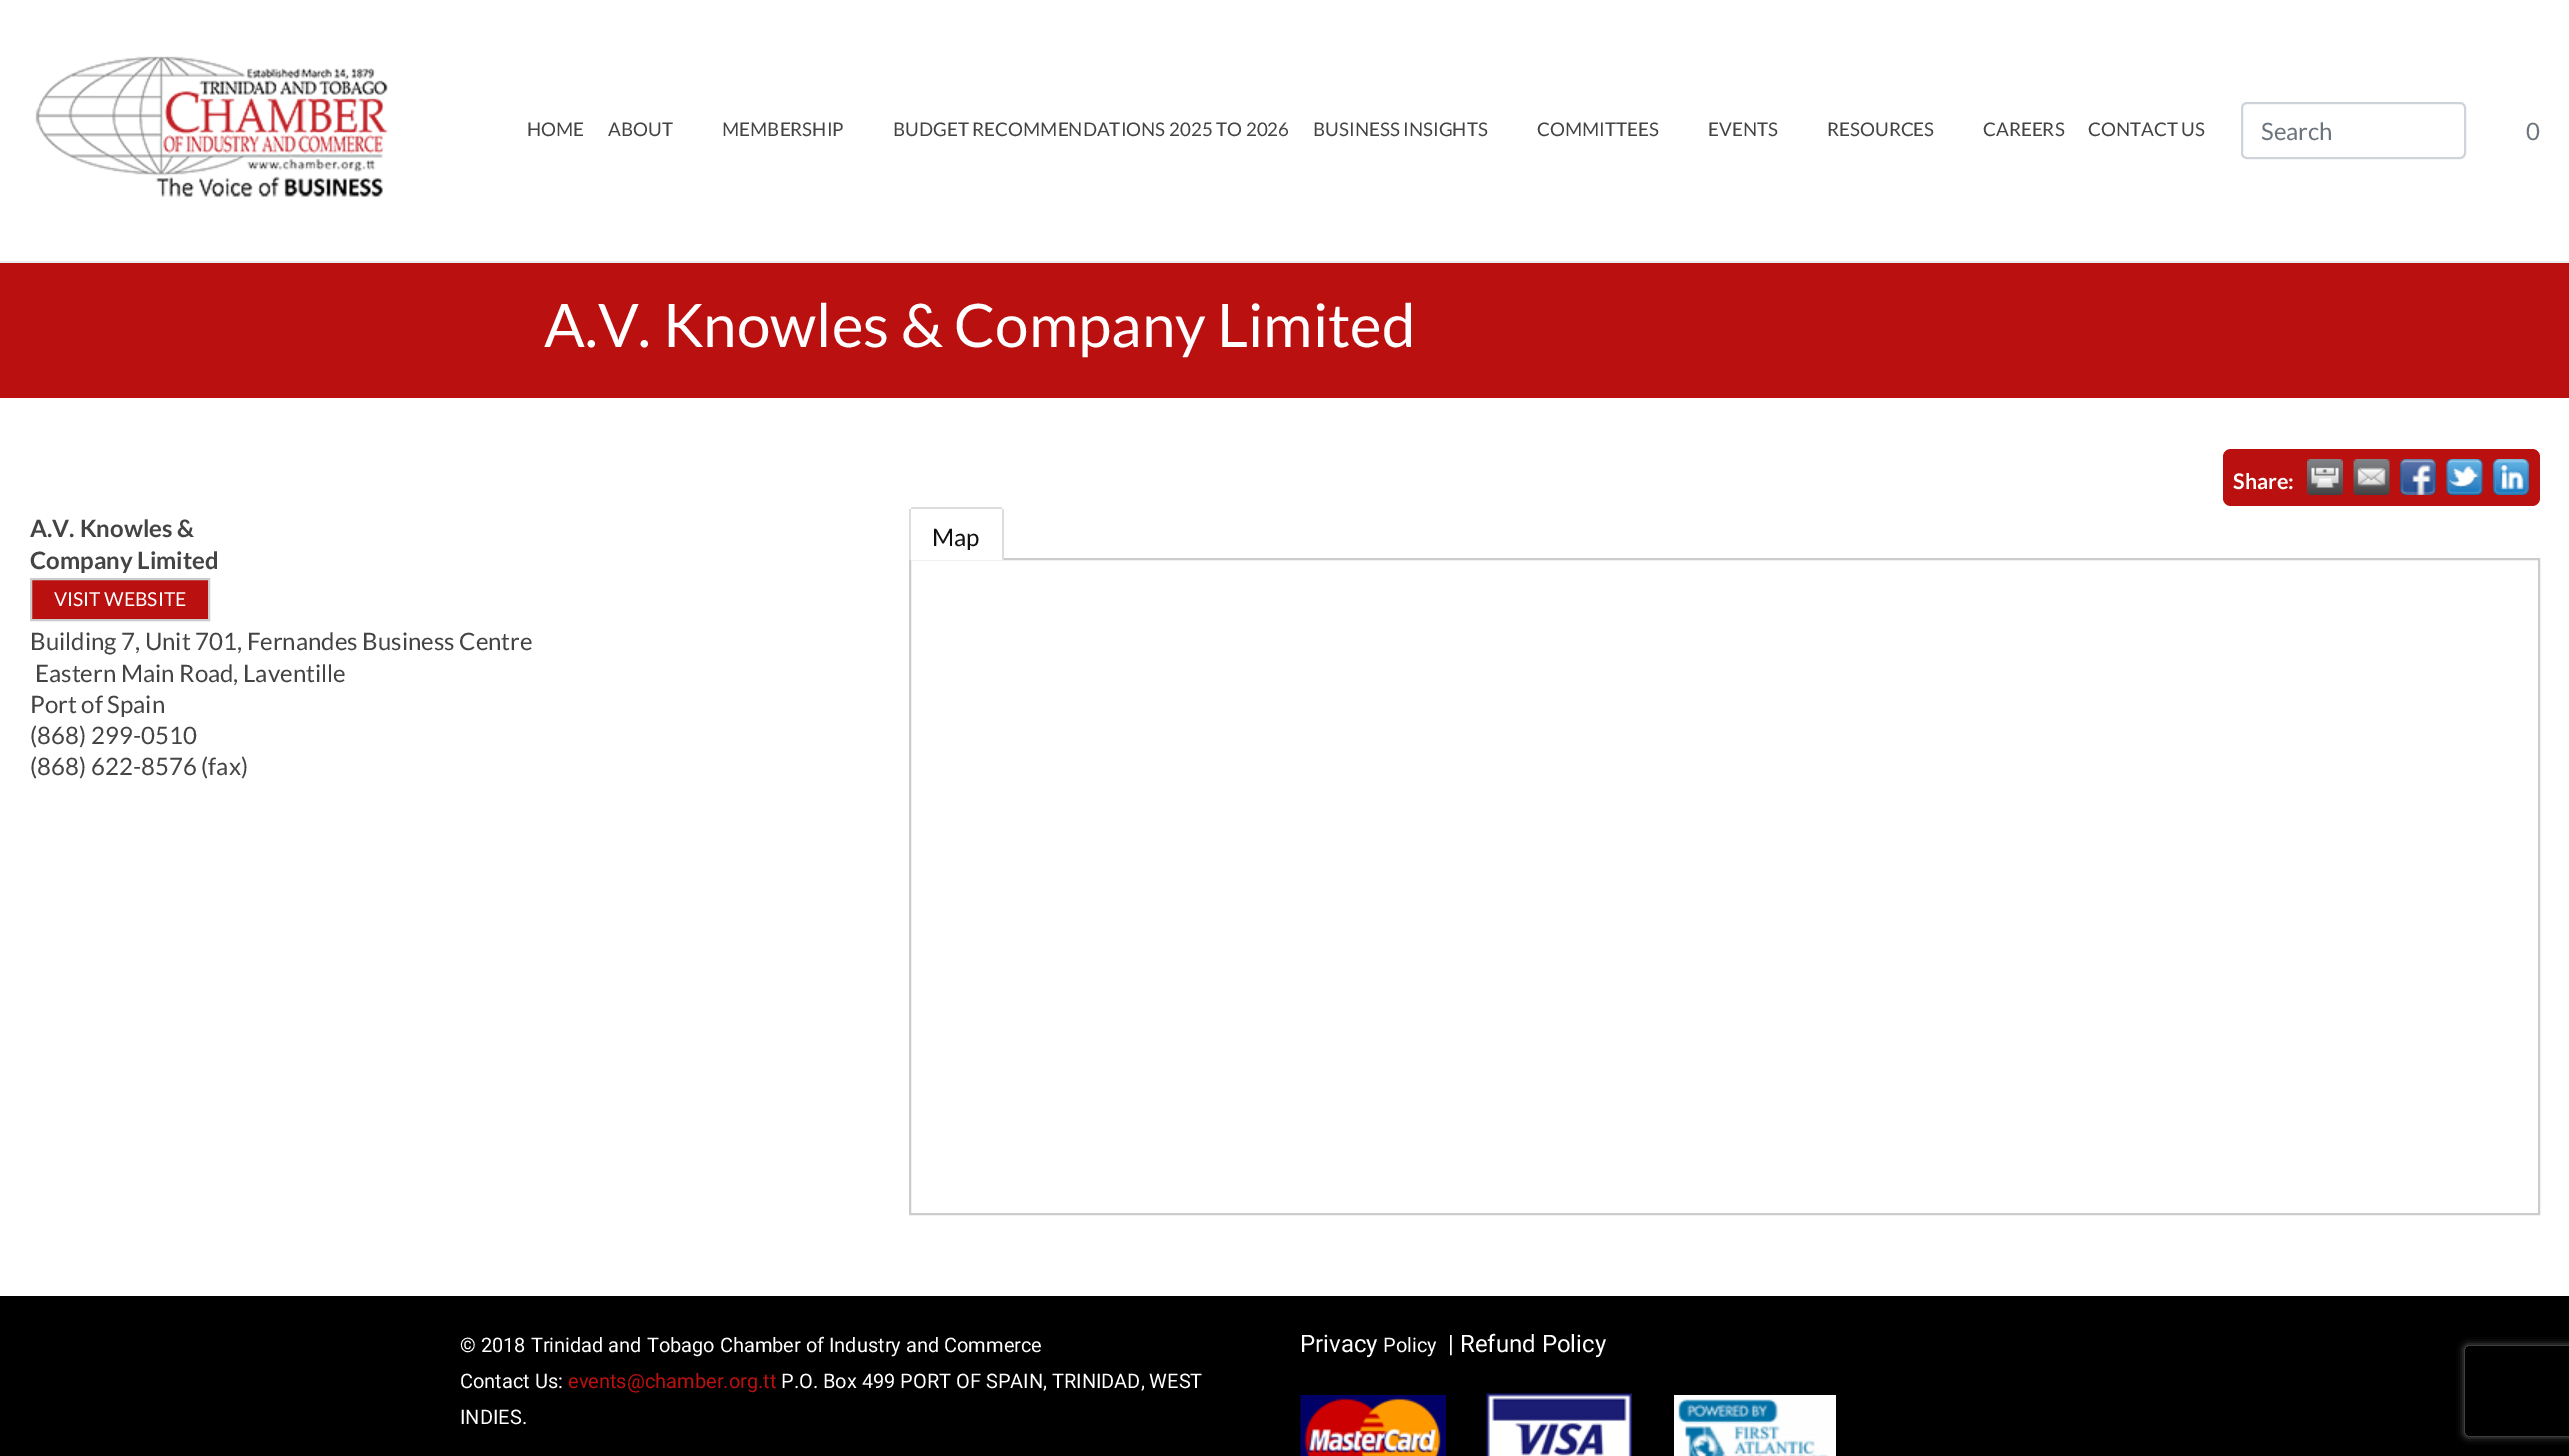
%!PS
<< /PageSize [2569 1456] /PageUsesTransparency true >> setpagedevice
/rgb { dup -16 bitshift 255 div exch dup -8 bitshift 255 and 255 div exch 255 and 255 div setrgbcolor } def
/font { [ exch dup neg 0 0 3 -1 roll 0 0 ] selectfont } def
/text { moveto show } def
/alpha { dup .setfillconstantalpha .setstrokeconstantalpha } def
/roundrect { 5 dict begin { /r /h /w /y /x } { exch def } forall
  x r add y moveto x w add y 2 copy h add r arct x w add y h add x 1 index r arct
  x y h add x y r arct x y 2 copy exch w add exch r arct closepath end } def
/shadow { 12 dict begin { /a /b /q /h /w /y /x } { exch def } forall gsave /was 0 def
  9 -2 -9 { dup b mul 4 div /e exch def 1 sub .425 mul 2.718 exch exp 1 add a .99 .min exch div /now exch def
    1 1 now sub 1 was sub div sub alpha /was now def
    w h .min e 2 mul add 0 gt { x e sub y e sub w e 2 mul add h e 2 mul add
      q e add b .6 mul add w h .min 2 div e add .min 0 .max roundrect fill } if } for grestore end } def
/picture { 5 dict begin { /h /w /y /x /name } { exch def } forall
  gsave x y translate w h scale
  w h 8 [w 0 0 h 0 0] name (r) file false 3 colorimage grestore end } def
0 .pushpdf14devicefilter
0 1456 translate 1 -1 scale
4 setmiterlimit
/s1 { /Lato-Regular 18.75 font 16#444444 rgb } def
/s2 { /Lato-Regular 24 font 16#6C757D rgb } def
/s3 { /Lato-Regular 60 font 16#FFFFFF rgb } def
/s4 { /Lato-Bold 21.5 font 16#FFFFFF rgb } def
/s5 { /Lato-Bold 24 font 16#444444 rgb } def
/s6 { /Lato-Regular 19.25 font 16#FFFFFF rgb } def
/s7 { /Lato-Regular 24 font 16#444444 rgb } def
/s8 { /Lato-Regular 24 font 16#111111 rgb } def
/s9 { /Roboto-Regular 20 font 16#FFFFFF rgb } def
/s10 { /Roboto-Regular 20 font 16#BA1010 rgb } def
/s11 { /Roboto-Regular 24 font 16#FFFFFF rgb } def
16#FFFFFF rgb
0 0 2569 1456 rectfill
16#E9ECEF rgb
0 261 2569 2 rectfill
(pic1.raw) 35 56 353 141 picture
s1
(HOME) 527 136 text
(ABOUT) 608 136 text
(MEMBERSHIP) 722 136 text
(BUDGET RECOMMENDATIONS 2025 TO 2026) 893 136 text
(BUSINESS INSIGHTS) 1313 136 text
(COMMITTEES) 1537 136 text
(EVENTS) 1708 136 text
(RESOURCES) 1827 136 text
(CAREERS) 1983 136 text
(CONTACT US) 2088 136 text
16#CED4DA rgb
2 setlinewidth
2242 103 223 55 5 roundrect stroke
s2
(Search) 2261 140 text
(0) 2526 140 text
16#BA1010 rgb
0 263 2569 135 rectfill
s3
(A.V. Knowles & Company Limited) 544 347 text
16#BA1010 rgb
2223 449 317 57 8 roundrect fill
s4
(Share:) 2233 489 text
(pic2.raw) 2307 459 36 36 picture
(pic3.raw) 2353 459 37 36 picture
(pic4.raw) 2400 459 36 36 picture
(pic5.raw) 2446 459 37 36 picture
(pic6.raw) 2493 459 36 36 picture
s5
(A.V. Knowles &) 30 537 text
(Company Limited) 30 569 text
16#BA1010 rgb
31 579 moveto 209 579 lineto 209 620 lineto 31 620 lineto closepath gsave fill grestore
16#CCCCCC rgb
stroke
s6
(VISIT WEBSITE) 54 606 text
s7
(Building 7, Unit 701, Fernandes Business Centre) 30 650 text
(Eastern Main Road, Laventille) 35 682 text
(Port of Spain) 30 713 text
(\(868\) 299-0510) 30 744 text
(\(868\) 622-8576 \(fax\)) 30 775 text
16#CCCCCC rgb
910 559 1629 655 rectstroke
16#FFFFFF rgb
912.5 509 moveto 1000.5 509 lineto 1001.5 509 1002 509.5 1002 510.5 curveto 1002 560 lineto 911 560 lineto 911 510.5 lineto 911 509.5 911.5 509 912.5 509 curveto closepath fill
16#DDDDDD rgb
911 507 91 2 rectfill
1002 509 2 51 rectfill
909 509 2 51 rectfill
s8
(Map) 932 546 text
16#000000 rgb
0 1296 2569 160 rectfill
s9
(© 2018 Trinidad and Tobago Chamber of Industry and Commerce) 460 1352 text
(Contact Us:) 460 1388 text
s10
(events@chamber.org.tt) 568 1388 text
s9
(P.O. Box 499 PORT OF SPAIN, TRINIDAD, WEST) 781 1388 text
(INDIES.) 460 1424 text
s11
(Privacy) 1300 1352 text
s9
(Policy) 1383 1352 text
s11
(| Refund Policy) 1448 1352 text
(pic7.raw) 1300 1395 146 61 picture
(pic8.raw) 1486 1393 146 63 picture
(pic9.raw) 1674 1395 162 61 picture
gsave
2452 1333 moveto 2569 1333 lineto 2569 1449 lineto 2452 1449 lineto closepath 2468 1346 moveto 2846 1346 lineto 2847.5 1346 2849 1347.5 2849 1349 curveto 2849 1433 lineto 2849 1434.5 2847.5 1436 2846 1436 curveto 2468 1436 lineto 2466.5 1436 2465 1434.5 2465 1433 curveto 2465 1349 lineto 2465 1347.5 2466.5 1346 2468 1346 curveto closepath eoclip newpath
16#808080 rgb
2465 1346 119 90 3 4 1 shadow
grestore
.poppdf14devicefilter showpage
